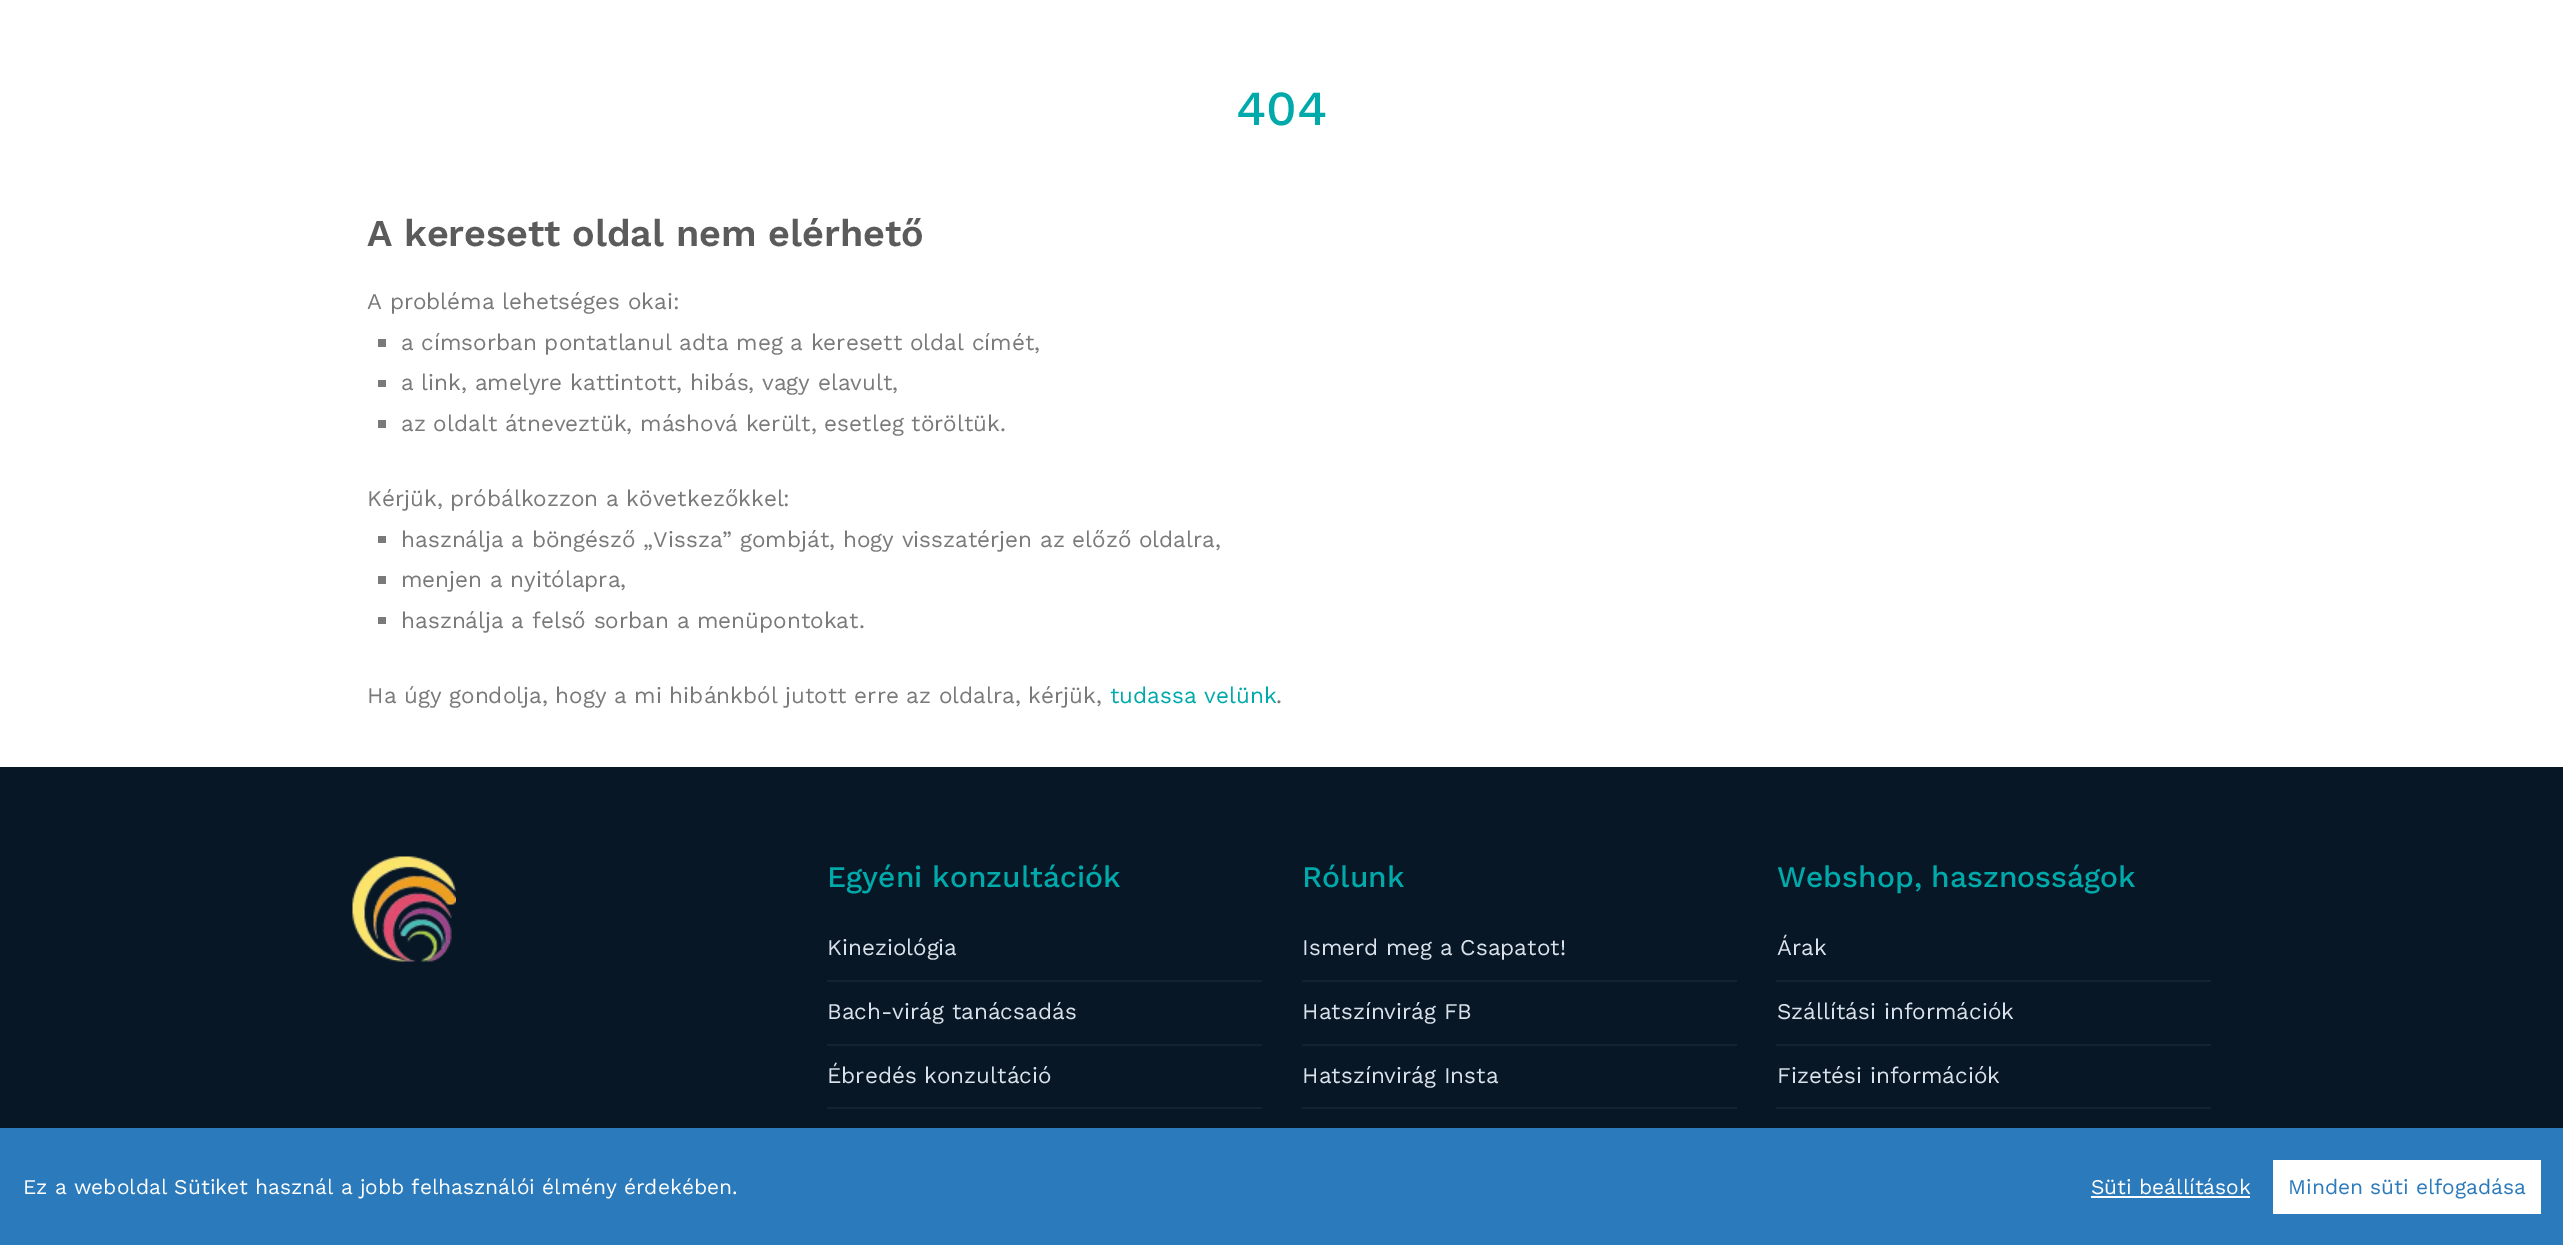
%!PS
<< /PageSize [2563 1245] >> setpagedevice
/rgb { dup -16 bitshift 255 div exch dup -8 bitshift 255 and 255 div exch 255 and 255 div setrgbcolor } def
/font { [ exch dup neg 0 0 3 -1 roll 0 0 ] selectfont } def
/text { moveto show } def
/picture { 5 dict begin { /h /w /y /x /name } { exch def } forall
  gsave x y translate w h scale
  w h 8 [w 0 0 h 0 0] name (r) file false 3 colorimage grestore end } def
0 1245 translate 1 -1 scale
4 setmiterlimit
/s1 { /WorkSans-Medium 49 font 16#00AAAA rgb } def
/s2 { /WorkSans-SemiBold 37.75 font 16#5B5B5B rgb } def
/s3 { /WorkSans-Regular 22.5 font 16#7A7A7A rgb } def
/s4 { /WorkSans-Regular 22.5 font 16#00AAAA rgb } def
/s5 { /WorkSans-Medium 30 font 16#00AAAA rgb } def
/s6 { /WorkSans-Regular 22.5 font 16#D9E2EA rgb } def
/s7 { /WorkSans-Regular 21 font 16#FFFFFF rgb } def
/s8 { /WorkSans-Regular 21 font 16#2B7ABB rgb } def
16#FFFFFF rgb
0 0 2563 1245 rectfill
s1
(404) 1236 125 text
s2
(A keresett oldal nem elérhető) 367 246 text
s3
(A probléma lehetséges okai:) 367 309 text
378 339 8 8 rectfill
(a címsorban pontatlanul adta meg a keresett oldal címét,) 401 350 text
378 380 8 7 rectfill
(a link, amelyre kattintott, hibás, vagy elavult,) 401 390 text
378 420 8 8 rectfill
(az oldalt átneveztük, máshová került, esetleg töröltük.) 401 431 text
(Kérjük, próbálkozzon a következőkkel:) 367 506 text
378 536 8 7 rectfill
(használja a böngésző „Vissza” gombját, hogy visszatérjen az előző oldalra,) 401 547 text
378 576 8 8 rectfill
(menjen a nyitólapra,) 401 587 text
378 617 8 7 rectfill
(használja a felső sorban a menüpontokat.) 401 628 text
(Ha úgy gondolja, hogy a mi hibánkból jutott erre az oldalra, kérjük,) 367 703 text
s4
(tudassa velünk) 1110 703 text
s3
(.) 1276 703 text
16#081726 rgb
0 767 2563 361 rectfill
(pic1.raw) 352 856 104 106 picture
s5
(Egyéni konzultációk) 827 887 text
16#142331 rgb
827 980 435 2 rectfill
s6
(Kineziológia) 827 955 text
16#142331 rgb
827 1044 435 2 rectfill
s6
(Bach-virág tanácsadás) 827 1019 text
16#142331 rgb
827 1107 435 2 rectfill
s6
(Ébredés konzultáció) 827 1083 text
s5
(Rólunk) 1302 887 text
16#142331 rgb
1302 980 435 2 rectfill
s6
(Ismerd meg a Csapatot!) 1302 955 text
16#142331 rgb
1302 1044 435 2 rectfill
s6
(Hatszínvirág FB) 1302 1019 text
16#142331 rgb
1302 1107 435 2 rectfill
s6
(Hatszínvirág Insta) 1302 1083 text
s5
(Webshop, hasznosságok) 1777 887 text
16#142331 rgb
1776 980 435 2 rectfill
s6
(Árak) 1777 955 text
16#142331 rgb
1776 1044 435 2 rectfill
s6
(Szállítási információk) 1777 1019 text
16#142331 rgb
1776 1107 435 2 rectfill
s6
(Fizetési információk) 1777 1083 text
16#2B7ABB rgb
0 1128 2563 117 rectfill
s7
(Ez a weboldal Sütiket használ a jobb felhasználói élmény érdekében.) 23 1194 text
(Süti beállítások) 2091 1194 text
2091 1196 159 2 rectfill
2273 1160 268 54 rectfill
s8
(Minden süti elfogadása) 2288 1194 text
showpage
